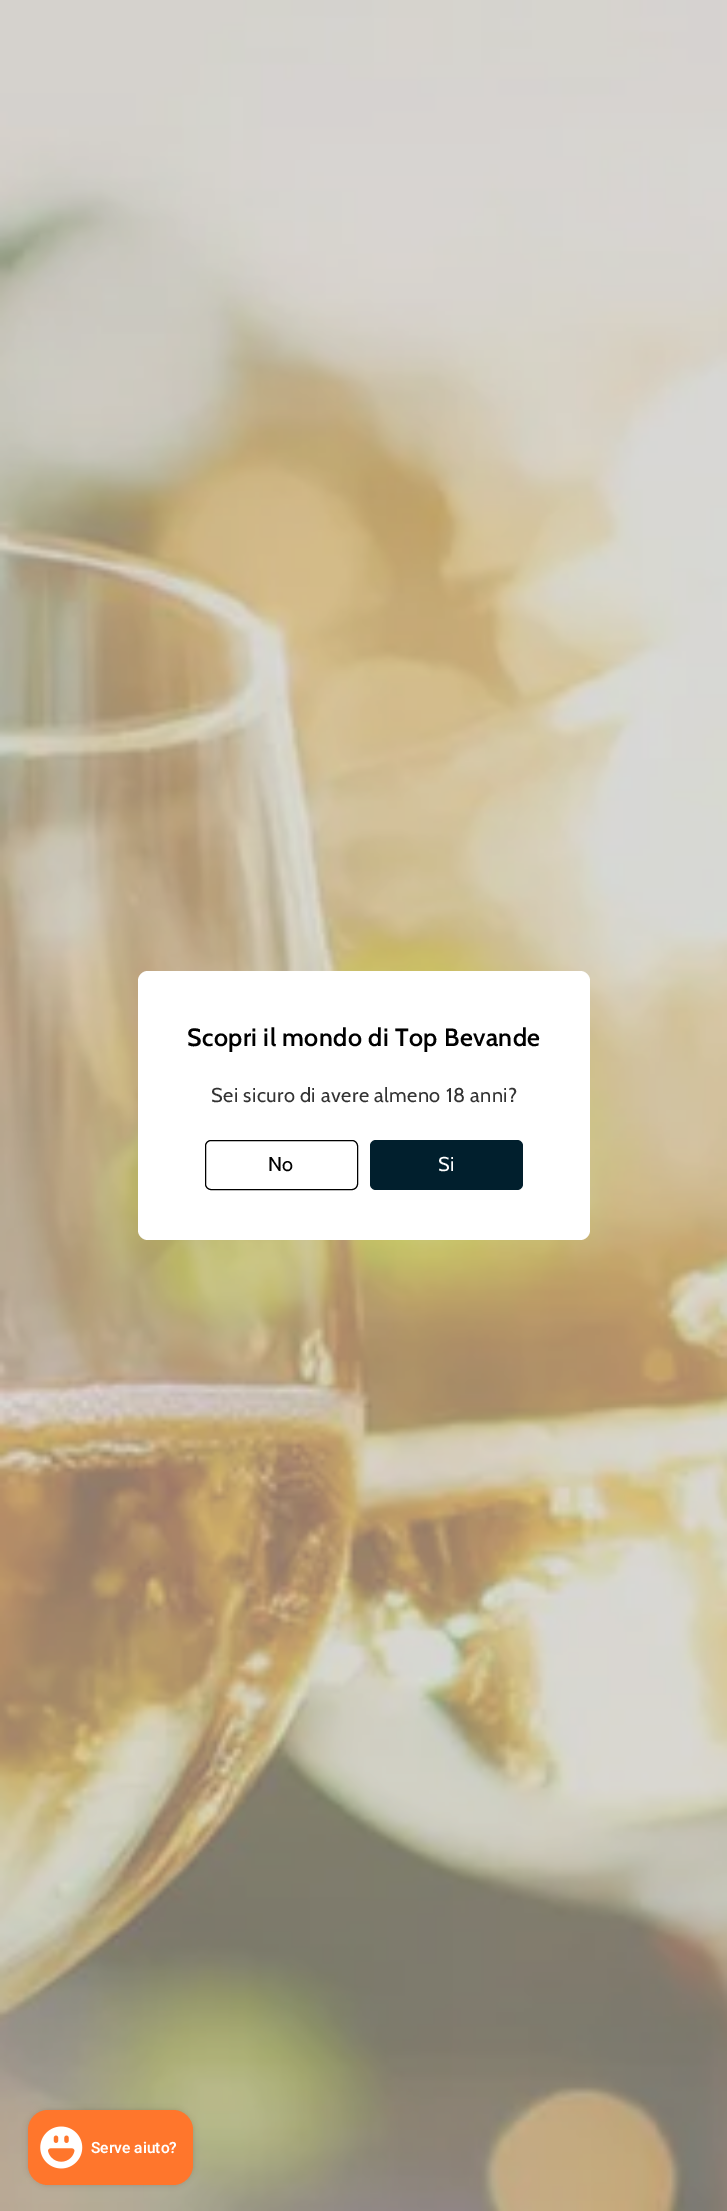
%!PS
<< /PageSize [727 2211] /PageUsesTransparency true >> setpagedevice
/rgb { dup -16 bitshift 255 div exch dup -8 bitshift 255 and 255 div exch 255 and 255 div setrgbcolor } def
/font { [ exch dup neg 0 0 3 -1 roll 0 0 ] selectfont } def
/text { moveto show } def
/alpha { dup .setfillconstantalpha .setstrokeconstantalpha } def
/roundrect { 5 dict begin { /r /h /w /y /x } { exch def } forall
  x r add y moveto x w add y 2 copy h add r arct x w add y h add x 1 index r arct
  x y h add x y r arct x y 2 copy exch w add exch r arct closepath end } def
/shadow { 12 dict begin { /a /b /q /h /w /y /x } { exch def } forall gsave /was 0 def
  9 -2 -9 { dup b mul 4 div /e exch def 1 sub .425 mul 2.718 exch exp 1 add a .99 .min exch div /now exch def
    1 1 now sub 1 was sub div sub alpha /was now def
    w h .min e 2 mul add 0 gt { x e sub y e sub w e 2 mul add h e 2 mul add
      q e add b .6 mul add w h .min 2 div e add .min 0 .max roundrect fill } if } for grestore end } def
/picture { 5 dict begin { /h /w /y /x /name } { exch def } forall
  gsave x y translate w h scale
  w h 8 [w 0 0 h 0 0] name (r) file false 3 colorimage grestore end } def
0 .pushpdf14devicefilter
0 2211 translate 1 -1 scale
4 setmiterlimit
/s1 { /Roboto-SemiBold 15.5 font 16#FFFFFF rgb } def
16#FFFFFF rgb
0 0 727 2211 rectfill
(pic1.raw) 0 0 727 2211 picture
138 971 452 269 10 roundrect fill
/Cabin-SemiBold 25 font
16#000000 rgb
187 1046 moveto 0.4 0 (Scopri il mondo di Top Bevande) ashow
/Cabin-Regular 20 font
16#333333 rgb
211 1102 moveto 0.4 0 (Sei sicuro di avere almeno 18 anni?) ashow
16#000000 rgb
205.5 1140.5 152 49 5.5 roundrect stroke
268 1171 moveto 0.4 0 (No) ashow
16#011F2D rgb
370 1140 153 50 6 roundrect fill
16#FFFFFF rgb
438 1171 moveto 0.4 0 (Si) ashow
16#000000 rgb
28 2110 165 75 20 3 0.15 shadow
16#FF762C rgb
28 2110 165 75 20 roundrect fill
(pic2.raw) 40 2126 43 43 picture
s1
(Serve aiuto?) 91 2153 text
.poppdf14devicefilter showpage
